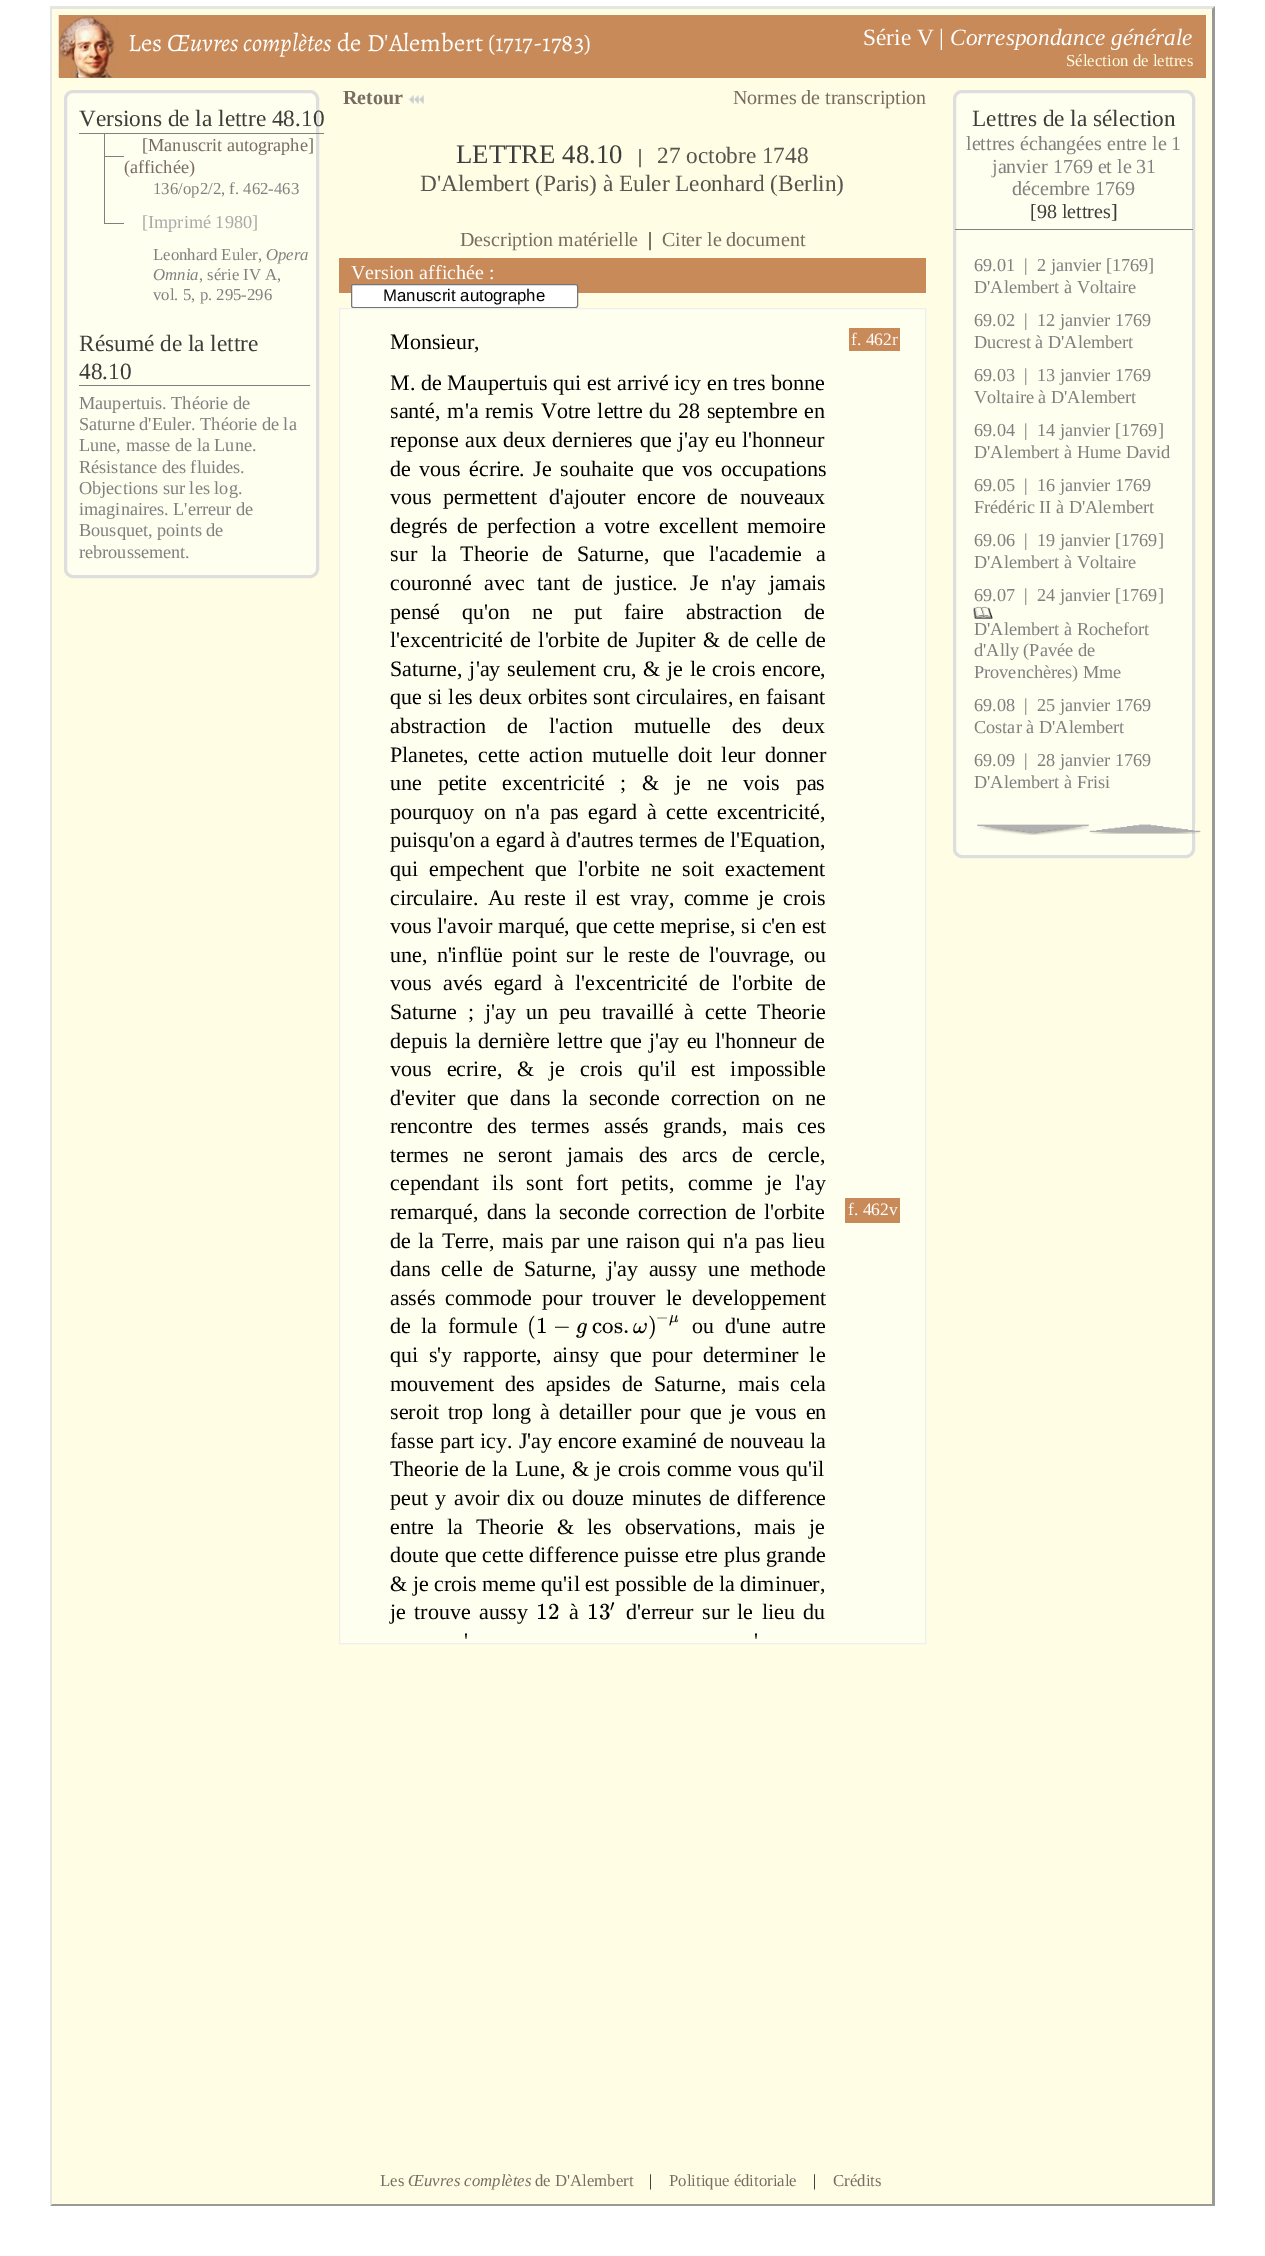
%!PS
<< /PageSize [1265 2256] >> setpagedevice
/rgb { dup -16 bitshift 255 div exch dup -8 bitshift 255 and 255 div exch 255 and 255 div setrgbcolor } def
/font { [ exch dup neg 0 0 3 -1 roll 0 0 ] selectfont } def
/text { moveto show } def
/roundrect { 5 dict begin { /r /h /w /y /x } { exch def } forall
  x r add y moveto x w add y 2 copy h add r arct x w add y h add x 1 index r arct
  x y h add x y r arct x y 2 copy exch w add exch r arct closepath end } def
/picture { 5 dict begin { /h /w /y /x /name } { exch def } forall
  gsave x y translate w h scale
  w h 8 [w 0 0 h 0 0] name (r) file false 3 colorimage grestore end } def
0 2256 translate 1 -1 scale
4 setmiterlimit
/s1 { /Alegreya-Regular 25 font 16#FFFFFF rgb } def
/s2 { /Alegreya-Italic 25 font 16#FFFFFF rgb } def
/s3 { /LiberationSerif-Regular 23.3 font 16#FFFFFF rgb } def
/s4 { /LiberationSerif-Italic 23.3 font 16#FFFFFF rgb } def
/s5 { /LiberationSerif-Regular 16.75 font 16#FFFFE5 rgb } def
/s6 { /LiberationSerif-Regular 23.3 font 16#3D3D3C rgb } def
/s7 { /LiberationSerif-Regular 18.25 font 16#786C62 rgb } def
/s8 { /LiberationSerif-Regular 16.75 font 16#808080 rgb } def
/s9 { /LiberationSerif-Regular 18.25 font 16#AAAAAA rgb } def
/s10 { /LiberationSerif-Italic 16.75 font 16#808080 rgb } def
/s11 { /LiberationSerif-Regular 18.25 font 16#808080 rgb } def
/s12 { /LiberationSerif-Bold 20 font 16#786C62 rgb } def
/s13 { /LiberationSerif-Regular 20 font 16#786C62 rgb } def
/s14 { /LiberationSerif-Regular 26.75 font 16#3D3D3C rgb } def
/s15 { /LiberationSerif-Regular 20 font 16#000000 rgb } def
/s16 { /LiberationSerif-Regular 23.3 font 16#59534F rgb } def
/s17 { /LiberationSerif-Regular 20 font 16#FFFFFF rgb } def
/s18 { /LiberationSans-Regular 16.75 font 16#000000 rgb } def
/s19 { /LiberationSerif-Regular 22 font 16#000000 rgb } def
/s20 { /LiberationSerif-Regular 17.5 font 16#FFFFFF rgb } def
/s21 { /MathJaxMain-Regular 23 font 16#000000 rgb } def
/s22 { /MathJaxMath-Italic 23 font 16#000000 rgb } def
/s23 { /MathJaxMain-Regular 16 font 16#000000 rgb } def
/s24 { /MathJaxMath-Italic 16 font 16#000000 rgb } def
/s25 { /LiberationSerif-Regular 20 font 16#808080 rgb } def
/s26 { /LiberationSerif-Regular 20 font 16#3D3D3C rgb } def
/s27 { /LiberationSerif-Regular 16.75 font 16#786C62 rgb } def
/s28 { /LiberationSerif-Italic 16.75 font 16#786C62 rgb } def
/s29 { /LiberationSerif-Regular 16.75 font 16#000000 rgb } def
16#FFFFFF rgb
0 0 1265 2256 rectfill
16#FFFEE5 rgb
50 6 1165 2200 rectfill
16#E5E5E2 rgb
50 6 moveto 1215 6 lineto 1212 9 lineto 52 9 lineto closepath fill
16#999997 rgb
1215 6 moveto 1215 2206 lineto 1212 2204 lineto 1212 9 lineto closepath fill
1215 2206 moveto 50 2206 lineto 52 2204 lineto 1212 2204 lineto closepath fill
16#E5E5E2 rgb
50 2206 moveto 50 6 lineto 52 9 lineto 52 2204 lineto closepath fill
16#C88A58 rgb
59 15 1147 63 rectfill
(pic1.raw) 58 15 60 63 picture
s1
(Les) 128 51 text
s2
(Œuvres complètes) 167 51 text
s1
(de D'Alembert \(1717-1783\)) 337 51 text
s3
(Série V |) 863 45 text
s4
(Correspondance générale) 950 45 text
s5
(Sélection de lettres) 1066 66 text
16#FFFFF0 rgb
65.5 91.5 252 485 7.5 roundrect gsave fill grestore
16#DFDEDE rgb
3 setlinewidth
stroke
16#808080 rgb
79 133 245 1 rectfill
s6
(Versions de la lettre 48.10) 79 126 text
16#808080 rgb
104 156 20 1 rectfill
104 134 1 66 rectfill
s7
([Manuscrit autographe]) 142 151 text
(\(affichée\)) 124 173 text
s8
(136/op2/2, f. 462-463) 153 194 text
104 223 20 1 rectfill
104 200 1 24 rectfill
s9
([Imprimé 1980]) 142 228 text
s8
(Leonhard Euler,) 153 260 text
s10
(Opera) 266 260 text
(Omnia) 153 280 text
s8
(, série IV A,) 199 280 text
(vol. 5, p. 295-296) 153 300 text
79 385 231 1 rectfill
s6
(Résumé de la lettre) 79 351 text
(48.10) 79 379 text
s11
(Maupertuis. Théorie de) 79 409 text
(Saturne d'Euler. Théorie de la) 79 430 text
(Lune, masse de la Lune.) 79 451 text
(Résistance des fluides.) 79 473 text
(Objections sur les log.) 79 494 text
(imaginaires. L'erreur de) 79 515 text
(Bousquet, points de) 79 536 text
(rebroussement.) 79 558 text
s12
(Retour) 343 104 text
(pic2.raw) 408 95 6 9 picture
(pic3.raw) 414 95 5 9 picture
(pic3.raw) 419 95 5 9 picture
s13
(Normes de transcription) 733 104 text
s14
(LETTRE 48.10) 456 163 text
s15
(|) 638 163 text
s16
(27 octobre 1748) 657 163 text
(D'Alembert \(Paris\) à Euler Leonhard \(Berlin\)) 420 191 text
s13
(Description matérielle) 460 246 text
s15
(|) 648 246 text
s13
(Citer le document) 662 246 text
16#C88A58 rgb
339 258 587 35 rectfill
s17
(Version affichée :) 351 279 text
351.5 284.5 226 23 2 roundrect gsave fill grestore
16#767676 rgb
1 setlinewidth
stroke
s18
(Manuscrit autographe) 383 301 text
16#FFFFF0 rgb
339.5 308.5 moveto 925.5 308.5 lineto 925.5 1643.5 lineto 339.5 1643.5 lineto closepath gsave fill grestore
16#EEEEEE rgb
stroke
s19
(Monsieur,) 390 349 text
16#C88A58 rgb
850 328 moveto 900 328 lineto 900 351 lineto 849 351 lineto 849 329 lineto 849 328.5 849.5 328 850 328 curveto closepath fill
s20
(f. 462r) 851 345 text
/LiberationSerif-Regular 22 font
16#000000 rgb
390 390 moveto 0.25 0 32 (M. de Maupertuis qui est arrivé icy en tres bonne) widthshow
390 418 moveto 1.25 0 32 (santé, m'a remis Votre lettre du 28 septembre en) widthshow
390 447 moveto 1 0 32 (reponse aux deux dernieres que j'ay eu l'honneur) widthshow
390 476 moveto 3 0 32 (de vous écrire. Je souhaite que vos occupations) widthshow
390 504 moveto 6.25 0 32 (vous permettent d'ajouter encore de nouveaux) widthshow
390 533 moveto 3.75 0 32 (degrés de perfection a votre excellent memoire) widthshow
390 561 moveto 8.25 0 32 (sur la Theorie de Saturne, que l'academie a) widthshow
390 590 moveto 6.75 0 32 (couronné avec tant de justice. Je n'ay jamais) widthshow
390 619 moveto 16.25 0 32 (pensé qu'on ne put faire abstraction de) widthshow
390 647 moveto 2 0 32 (l'excentricité de l'orbite de Jupiter & de celle de) widthshow
390 676 moveto 1.25 0 32 (Saturne, j'ay seulement cru, & je le crois encore,) widthshow
390 704 moveto 0.5 0 32 (que si les deux orbites sont circulaires, en faisant) widthshow
390 733 moveto 15.5 0 32 (abstraction de l'action mutuelle des deux) widthshow
390 762 moveto 3.75 0 32 (Planetes, cette action mutuelle doit leur donner) widthshow
390 790 moveto 10.25 0 32 (une petite excentricité ; & je ne vois pas) widthshow
390 819 moveto 4 0 32 (pourquoy on n'a pas egard à cette excentricité,) widthshow
390 847 moveto 0.25 0 32 (puisqu'on a egard à d'autres termes de l'Equation,) widthshow
390 876 moveto 5.5 0 32 (qui empechent que l'orbite ne soit exactement) widthshow
390 905 moveto 3.75 0 32 (circulaire. Au reste il est vray, comme je crois) widthshow
390 933 moveto 0.25 0 32 (vous l'avoir marqué, que cette meprise, si c'en est) widthshow
390 962 moveto 3.75 0 32 (une, n'inflüe point sur le reste de l'ouvrage, ou) widthshow
390 990 moveto 6 0 32 (vous avés egard à l'excentricité de l'orbite de) widthshow
390 1019 moveto 5.25 0 32 (Saturne ; j'ay un peu travaillé à cette Theorie) widthshow
390 1048 moveto 1.75 0 32 (depuis la dernière lettre que j'ay eu l'honneur de) widthshow
390 1076 moveto 9.5 0 32 (vous ecrire, & je crois qu'il est impossible) widthshow
390 1105 moveto 6 0 32 (d'eviter que dans la seconde correction on ne) widthshow
390 1133 moveto 8.75 0 32 (rencontre des termes assés grands, mais ces) widthshow
390 1162 moveto 9 0 32 (termes ne seront jamais des arcs de cercle,) widthshow
390 1190 moveto 7.75 0 32 (cependant ils sont fort petits, comme je l'ay) widthshow
559 1219 moveto 2.5 0 32 (seconde correction de l'orbite) widthshow
390 1248 moveto 2 0 32 (de la Terre, mais par une raison qui n'a pas lieu) widthshow
390 1276 moveto 5 0 32 (dans celle de Saturne, j'ay aussy une methode) widthshow
390 1305 moveto 4.5 0 32 (assés commode pour trouver le developpement) widthshow
390 1333 moveto 5 0 32 (de la formule) widthshow
s21
(\(1) 527 1333 text
(−) 553 1333 text
s22
(g) 576 1333 text
s21
(cos.) 592 1333 text
s22
(ω) 633 1333 text
s21
(\)) 648 1333 text
s23
(−) 656 1322 text
s24
(μ) 669 1322 text
/LiberationSerif-Regular 22 font
692 1333 moveto 5 0 32 (ou d'une autre) widthshow
390 1362 moveto 5.25 0 32 (qui s'y rapporte, ainsy que pour determiner le) widthshow
390 1391 moveto 5.75 0 32 (mouvement des apsides de Saturne, mais cela) widthshow
390 1419 moveto 3.5 0 32 (seroit trop long à detailler pour que je vous en) widthshow
390 1448 moveto 0.5 0 32 (fasse part icy. J'ay encore examiné de nouveau la) widthshow
390 1476 moveto 1 0 32 (Theorie de la Lune, & je crois comme vous qu'il) widthshow
390 1505 moveto 2 0 32 (peut y avoir dix ou douze minutes de difference) widthshow
390 1534 moveto 7.5 0 32 (entre la Theorie & les observations, mais je) widthshow
390 1562 moveto 0.25 0 32 (doute que cette difference puisse etre plus grande) widthshow
(& je crois meme qu'il est possible de la diminuer,) 390 1591 text
390 1619 moveto 3 0 32 (je trouve aussy) widthshow
s21
(12) 536 1619 text
s19
(à) 569 1619 text
s21
(13) 587 1619 text
s23
(′) 610 1611 text
/LiberationSerif-Regular 22 font
626 1619 moveto 3 0 32 (d'erreur sur le lieu du) widthshow
464 1648 moveto 8 0 32 (') widthshow
754 1648 moveto 8 0 32 (') widthshow
16#C88A58 rgb
846 1198 moveto 900 1198 lineto 900 1223 lineto 845 1223 lineto 845 1199 lineto 845 1198.5 845.5 1198 846 1198 curveto closepath fill
s20
(f. 462v) 848 1215 text
/LiberationSerif-Regular 22 font
16#000000 rgb
390 1219 moveto 2.5 0 32 (remarqué, dans la) widthshow
16#FFFFF0 rgb
954.5 91.5 239 765 7.5 roundrect gsave fill grestore
16#DFDEDE rgb
3 setlinewidth
stroke
16#808080 rgb
955 229 238 1 rectfill
s6
(Lettres de la sélection) 972 126 text
s25
(lettres échangées entre le 1) 966 150 text
(janvier 1769 et le 31) 992 173 text
(décembre 1769) 1012 195 text
s26
([98 lettres]) 1030 218 text
s11
(69.01  |  2 janvier [1769]) 974 271 text
(D'Alembert à Voltaire) 974 293 text
(69.02  |  12 janvier 1769) 974 326 text
(Ducrest à D'Alembert) 974 348 text
(69.03  |  13 janvier 1769) 974 381 text
(Voltaire à D'Alembert) 974 403 text
(69.04  |  14 janvier [1769]) 974 436 text
(D'Alembert à Hume David) 974 458 text
(69.05  |  16 janvier 1769) 974 491 text
(Frédéric II à D'Alembert) 974 513 text
(69.06  |  19 janvier [1769]) 974 546 text
(D'Alembert à Voltaire) 974 568 text
(69.07  |  24 janvier [1769]) 974 601 text
(pic4.raw) 973 606 20 13 picture
(D'Alembert à Rochefort) 974 635 text
(d'Ally \(Pavée de) 974 656 text
(Provenchères\) Mme) 974 678 text
(69.08  |  25 janvier 1769) 974 711 text
(Costar à D'Alembert) 974 733 text
(69.09  |  28 janvier 1769) 974 766 text
(D'Alembert à Frisi) 974 788 text
(pic5.raw) 977 824 112 11 picture
(pic6.raw) 1089 824 112 10 picture
s27
(Les) 380 2186 text
s28
(Œuvres complètes) 408 2186 text
s27
(de D'Alembert) 535 2186 text
s29
(|) 649 2186 text
s27
(Politique éditoriale) 669 2186 text
s29
(|) 813 2186 text
s27
(Crédits) 833 2186 text
showpage
